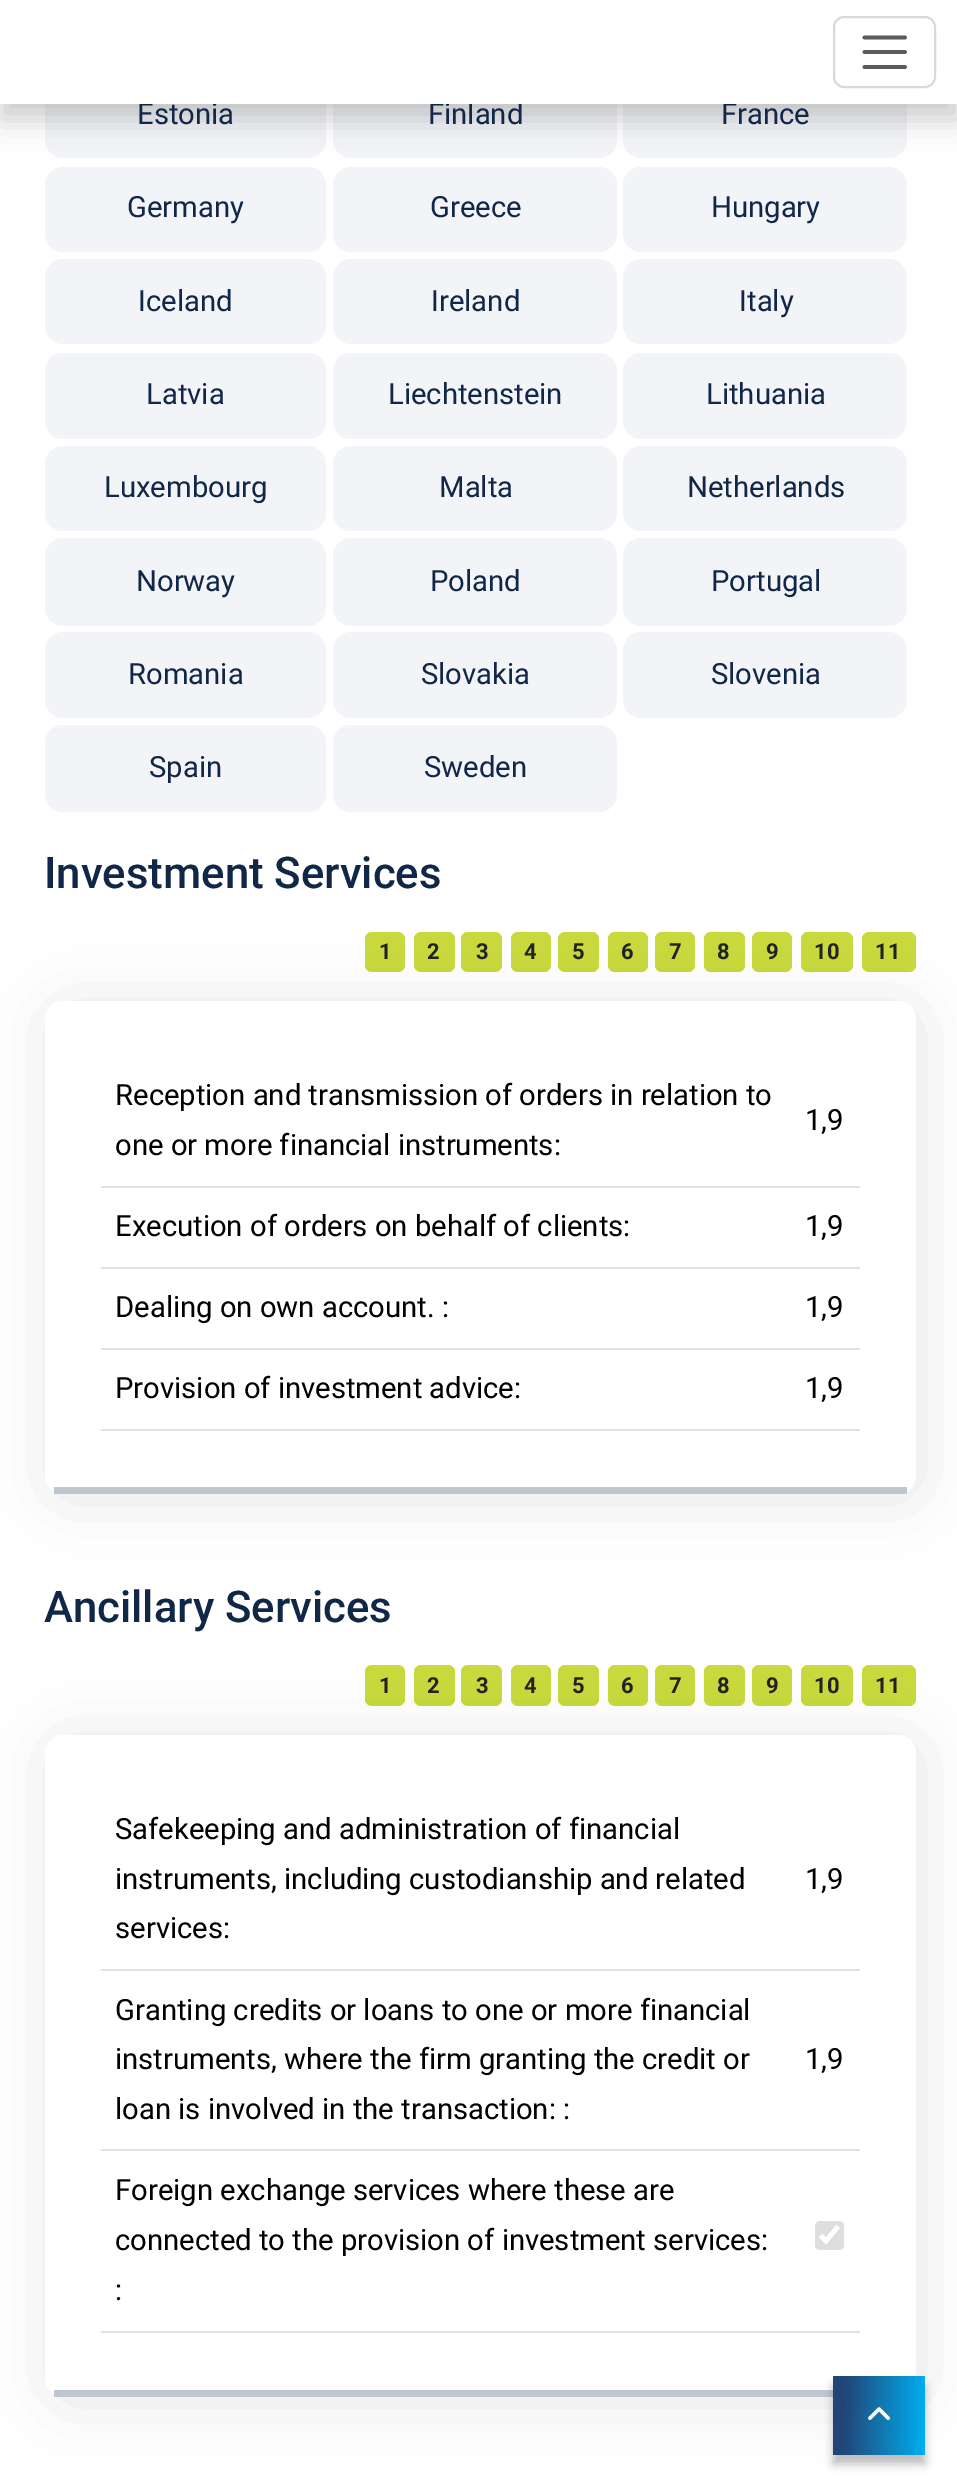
%!PS
<< /PageSize [957 2487] /PageUsesTransparency true >> setpagedevice
/rgb { dup -16 bitshift 255 div exch dup -8 bitshift 255 and 255 div exch 255 and 255 div setrgbcolor } def
/font { [ exch dup neg 0 0 3 -1 roll 0 0 ] selectfont } def
/text { moveto show } def
/alpha { dup .setfillconstantalpha .setstrokeconstantalpha } def
/roundrect { 5 dict begin { /r /h /w /y /x } { exch def } forall
  x r add y moveto x w add y 2 copy h add r arct x w add y h add x 1 index r arct
  x y h add x y r arct x y 2 copy exch w add exch r arct closepath end } def
/shadow { 12 dict begin { /a /b /q /h /w /y /x } { exch def } forall gsave /was 0 def
  9 -2 -9 { dup b mul 4 div /e exch def 1 sub .425 mul 2.718 exch exp 1 add a .99 .min exch div /now exch def
    1 1 now sub 1 was sub div sub alpha /was now def
    w h .min e 2 mul add 0 gt { x e sub y e sub w e 2 mul add h e 2 mul add
      q e add b .6 mul add w h .min 2 div e add .min 0 .max roundrect fill } if } for grestore end } def
/picture { 5 dict begin { /h /w /y /x /name } { exch def } forall
  gsave x y translate w h scale
  w h 8 [w 0 0 h 0 0] name (r) file false 3 colorimage grestore end } def
0 .pushpdf14devicefilter
0 2487 translate 1 -1 scale
4 setmiterlimit
/s1 { /Roboto-Regular 29.25 font 16#112747 rgb } def
/s2 { /Roboto-Medium 43.75 font 16#112747 rgb } def
/s3 { /Roboto-Bold 22 font 16#222222 rgb } def
/s4 { /Roboto-Regular 29.25 font 16#000000 rgb } def
16#FFFFFF rgb
0 0 957 2487 rectfill
16#F3F4F8 rgb
45 72 281 86 18 roundrect fill
333 72 284 86 18 roundrect fill
623 72 284 86 18 roundrect fill
16#000000 rgb
0 16 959 103 0 14.5 0.2 shadow
s1
(Estonia) 137 124 text
(Finland) 428 124 text
(France) 721 124 text
16#FFFFFF rgb
0 0 957 104 rectfill
16#D9D9D9 rgb
2 setlinewidth
834 17 101 70 10 roundrect stroke
16#595C5F rgb
3.7 setlinewidth
1 setlinecap
864.5 37.5 moveto 905 37.5 lineto 864.5 52 moveto 905 52 lineto 864.5 67 moveto 905 67 lineto stroke
16#F3F4F8 rgb
45 167 281 85 18 roundrect fill
s1
(Germany) 127 217 text
16#F3F4F8 rgb
333 167 284 85 18 roundrect fill
s1
(Greece) 430 217 text
16#F3F4F8 rgb
623 167 284 85 18 roundrect fill
s1
(Hungary) 711 217 text
16#F3F4F8 rgb
45 259 281 85 18 roundrect fill
s1
(Iceland) 138 311 text
16#F3F4F8 rgb
333 259 284 85 18 roundrect fill
s1
(Ireland) 431 311 text
16#F3F4F8 rgb
623 259 284 85 18 roundrect fill
s1
(Italy) 739 311 text
16#F3F4F8 rgb
45 353 281 86 18 roundrect fill
s1
(Latvia) 146 404 text
16#F3F4F8 rgb
333 353 284 86 18 roundrect fill
s1
(Liechtenstein) 388 404 text
16#F3F4F8 rgb
623 353 284 86 18 roundrect fill
s1
(Lithuania) 706 404 text
16#F3F4F8 rgb
45 446 281 85 18 roundrect fill
s1
(Luxembourg) 104 497 text
16#F3F4F8 rgb
333 446 284 85 18 roundrect fill
s1
(Malta) 439 497 text
16#F3F4F8 rgb
623 446 284 85 18 roundrect fill
s1
(Netherlands) 687 497 text
16#F3F4F8 rgb
45 538 281 88 18 roundrect fill
s1
(Norway) 136 591 text
16#F3F4F8 rgb
333 538 284 88 18 roundrect fill
s1
(Poland) 430 591 text
16#F3F4F8 rgb
623 538 284 88 18 roundrect fill
s1
(Portugal) 711 591 text
16#F3F4F8 rgb
45 632 281 86 18 roundrect fill
s1
(Romania) 128 684 text
16#F3F4F8 rgb
333 632 284 86 18 roundrect fill
s1
(Slovakia) 421 684 text
16#F3F4F8 rgb
623 632 284 86 18 roundrect fill
s1
(Slovenia) 711 684 text
16#F3F4F8 rgb
45 725 281 87 18 roundrect fill
s1
(Spain) 149 777 text
16#F3F4F8 rgb
333 725 284 87 18 roundrect fill
s1
(Sweden) 424 777 text
s2
(Investment Services) 44 888 text
16#C9DA3D rgb
365 932 40 40 7 roundrect fill
s3
(1) 379 959 text
16#C9DA3D rgb
414 932 41 40 7 roundrect fill
s3
(2) 427 959 text
16#C9DA3D rgb
461 932 41 40 7 roundrect fill
s3
(3) 476 959 text
16#C9DA3D rgb
511 932 40 40 7 roundrect fill
s3
(4) 524 959 text
16#C9DA3D rgb
558 932 41 40 7 roundrect fill
s3
(5) 572 959 text
16#C9DA3D rgb
608 932 40 40 7 roundrect fill
s3
(6) 621 959 text
16#C9DA3D rgb
655 932 40 40 7 roundrect fill
s3
(7) 669 959 text
16#C9DA3D rgb
704 932 41 40 7 roundrect fill
s3
(8) 717 959 text
16#C9DA3D rgb
752 932 40 40 7 roundrect fill
s3
(9) 766 959 text
16#C9DA3D rgb
801 932 52 40 7 roundrect fill
s3
(10) 814 959 text
16#C9DA3D rgb
862 932 54 40 7 roundrect fill
s3
(11) 875 959 text
16#000000 rgb
50 1006 870 493 18 31.5 0.1 shadow
16#FFFFFF rgb
45 1001 871 493 18 roundrect fill
16#BEC7D0 rgb
54 1487 853 7 rectfill
s4
(Reception and transmission of orders in relation to) 115 1105 text
(one or more financial instruments:) 115 1155 text
16#DEE2E6 rgb
101 1186 759 2 rectfill
s4
(1,9) 805 1130 text
(Execution of orders on behalf of clients:) 115 1236 text
16#DEE2E6 rgb
101 1267 759 2 rectfill
s4
(1,9) 805 1236 text
(Dealing on own account. :) 115 1317 text
16#DEE2E6 rgb
101 1348 759 2 rectfill
s4
(1,9) 805 1317 text
(Provision of investment advice:) 115 1398 text
16#DEE2E6 rgb
101 1429 759 2 rectfill
s4
(1,9) 805 1398 text
s2
(Ancillary Services) 44 1622 text
16#C9DA3D rgb
365 1665 40 41 7 roundrect fill
s3
(1) 379 1693 text
16#C9DA3D rgb
414 1665 41 41 7 roundrect fill
s3
(2) 427 1693 text
16#C9DA3D rgb
461 1665 41 41 7 roundrect fill
s3
(3) 476 1693 text
16#C9DA3D rgb
511 1665 40 41 7 roundrect fill
s3
(4) 524 1693 text
16#C9DA3D rgb
558 1665 41 41 7 roundrect fill
s3
(5) 572 1693 text
16#C9DA3D rgb
608 1665 40 41 7 roundrect fill
s3
(6) 621 1693 text
16#C9DA3D rgb
655 1665 40 41 7 roundrect fill
s3
(7) 669 1693 text
16#C9DA3D rgb
704 1665 41 41 7 roundrect fill
s3
(8) 717 1693 text
16#C9DA3D rgb
752 1665 40 41 7 roundrect fill
s3
(9) 766 1693 text
16#C9DA3D rgb
801 1665 52 41 7 roundrect fill
s3
(10) 814 1693 text
16#C9DA3D rgb
862 1665 54 41 7 roundrect fill
s3
(11) 875 1693 text
16#000000 rgb
50 1739 870 662 18 31.5 0.1 shadow
16#FFFFFF rgb
45 1735 871 661 18 roundrect fill
16#BEC7D0 rgb
54 2390 779 7 rectfill
s4
(Safekeeping and administration of financial) 115 1839 text
(instruments, including custodianship and related) 115 1889 text
(services:) 115 1938 text
16#DEE2E6 rgb
101 1969 759 2 rectfill
s4
(1,9) 805 1889 text
(Granting credits or loans to one or more financial) 115 2020 text
(instruments, where the firm granting the credit or) 115 2069 text
(loan is involved in the transaction: :) 115 2119 text
16#DEE2E6 rgb
101 2149 759 2 rectfill
s4
(1,9) 805 2069 text
(Foreign exchange services where these are) 115 2200 text
(connected to the provision of investment services:) 115 2250 text
(:) 115 2300 text
16#DEE2E6 rgb
101 2331 759 2 rectfill
16#DEDEDE rgb
815 2221 29 29 5 roundrect fill
16#FFFFFF rgb
4.7 setlinewidth
0 setlinecap
820.5 2235.5 moveto 826 2241 lineto 838 2226.5 lineto stroke
16#000000 rgb
833 2385 92 79 0 4.5 0.25 shadow
gsave 833 2376 moveto 925 2376 lineto 925 2455 lineto 833 2455 lineto closepath clip newpath
<< /ShadingType 2 /ColorSpace /DeviceRGB /Coords [831 2414 926 2417] /Extend [true true] /Function << /FunctionType 3 /Domain [0 1] /Functions [<< /FunctionType 2 /Domain [0 1] /C0 [0.133 0.271 0.467] /C1 [0.133 0.271 0.467] /N 1 >> << /FunctionType 2 /Domain [0 1] /C0 [0.133 0.271 0.467] /C1 [0 0.682 0.937] /N 1 >> << /FunctionType 2 /Domain [0 1] /C0 [0 0.682 0.937] /C1 [0 0.682 0.937] /N 1 >>] /Bounds [0.13 0.99] /Encode [0 1 0 1 0 1] >> >> shfill grestore
(pic1.raw) 868 2407 22 13 picture
.poppdf14devicefilter showpage
